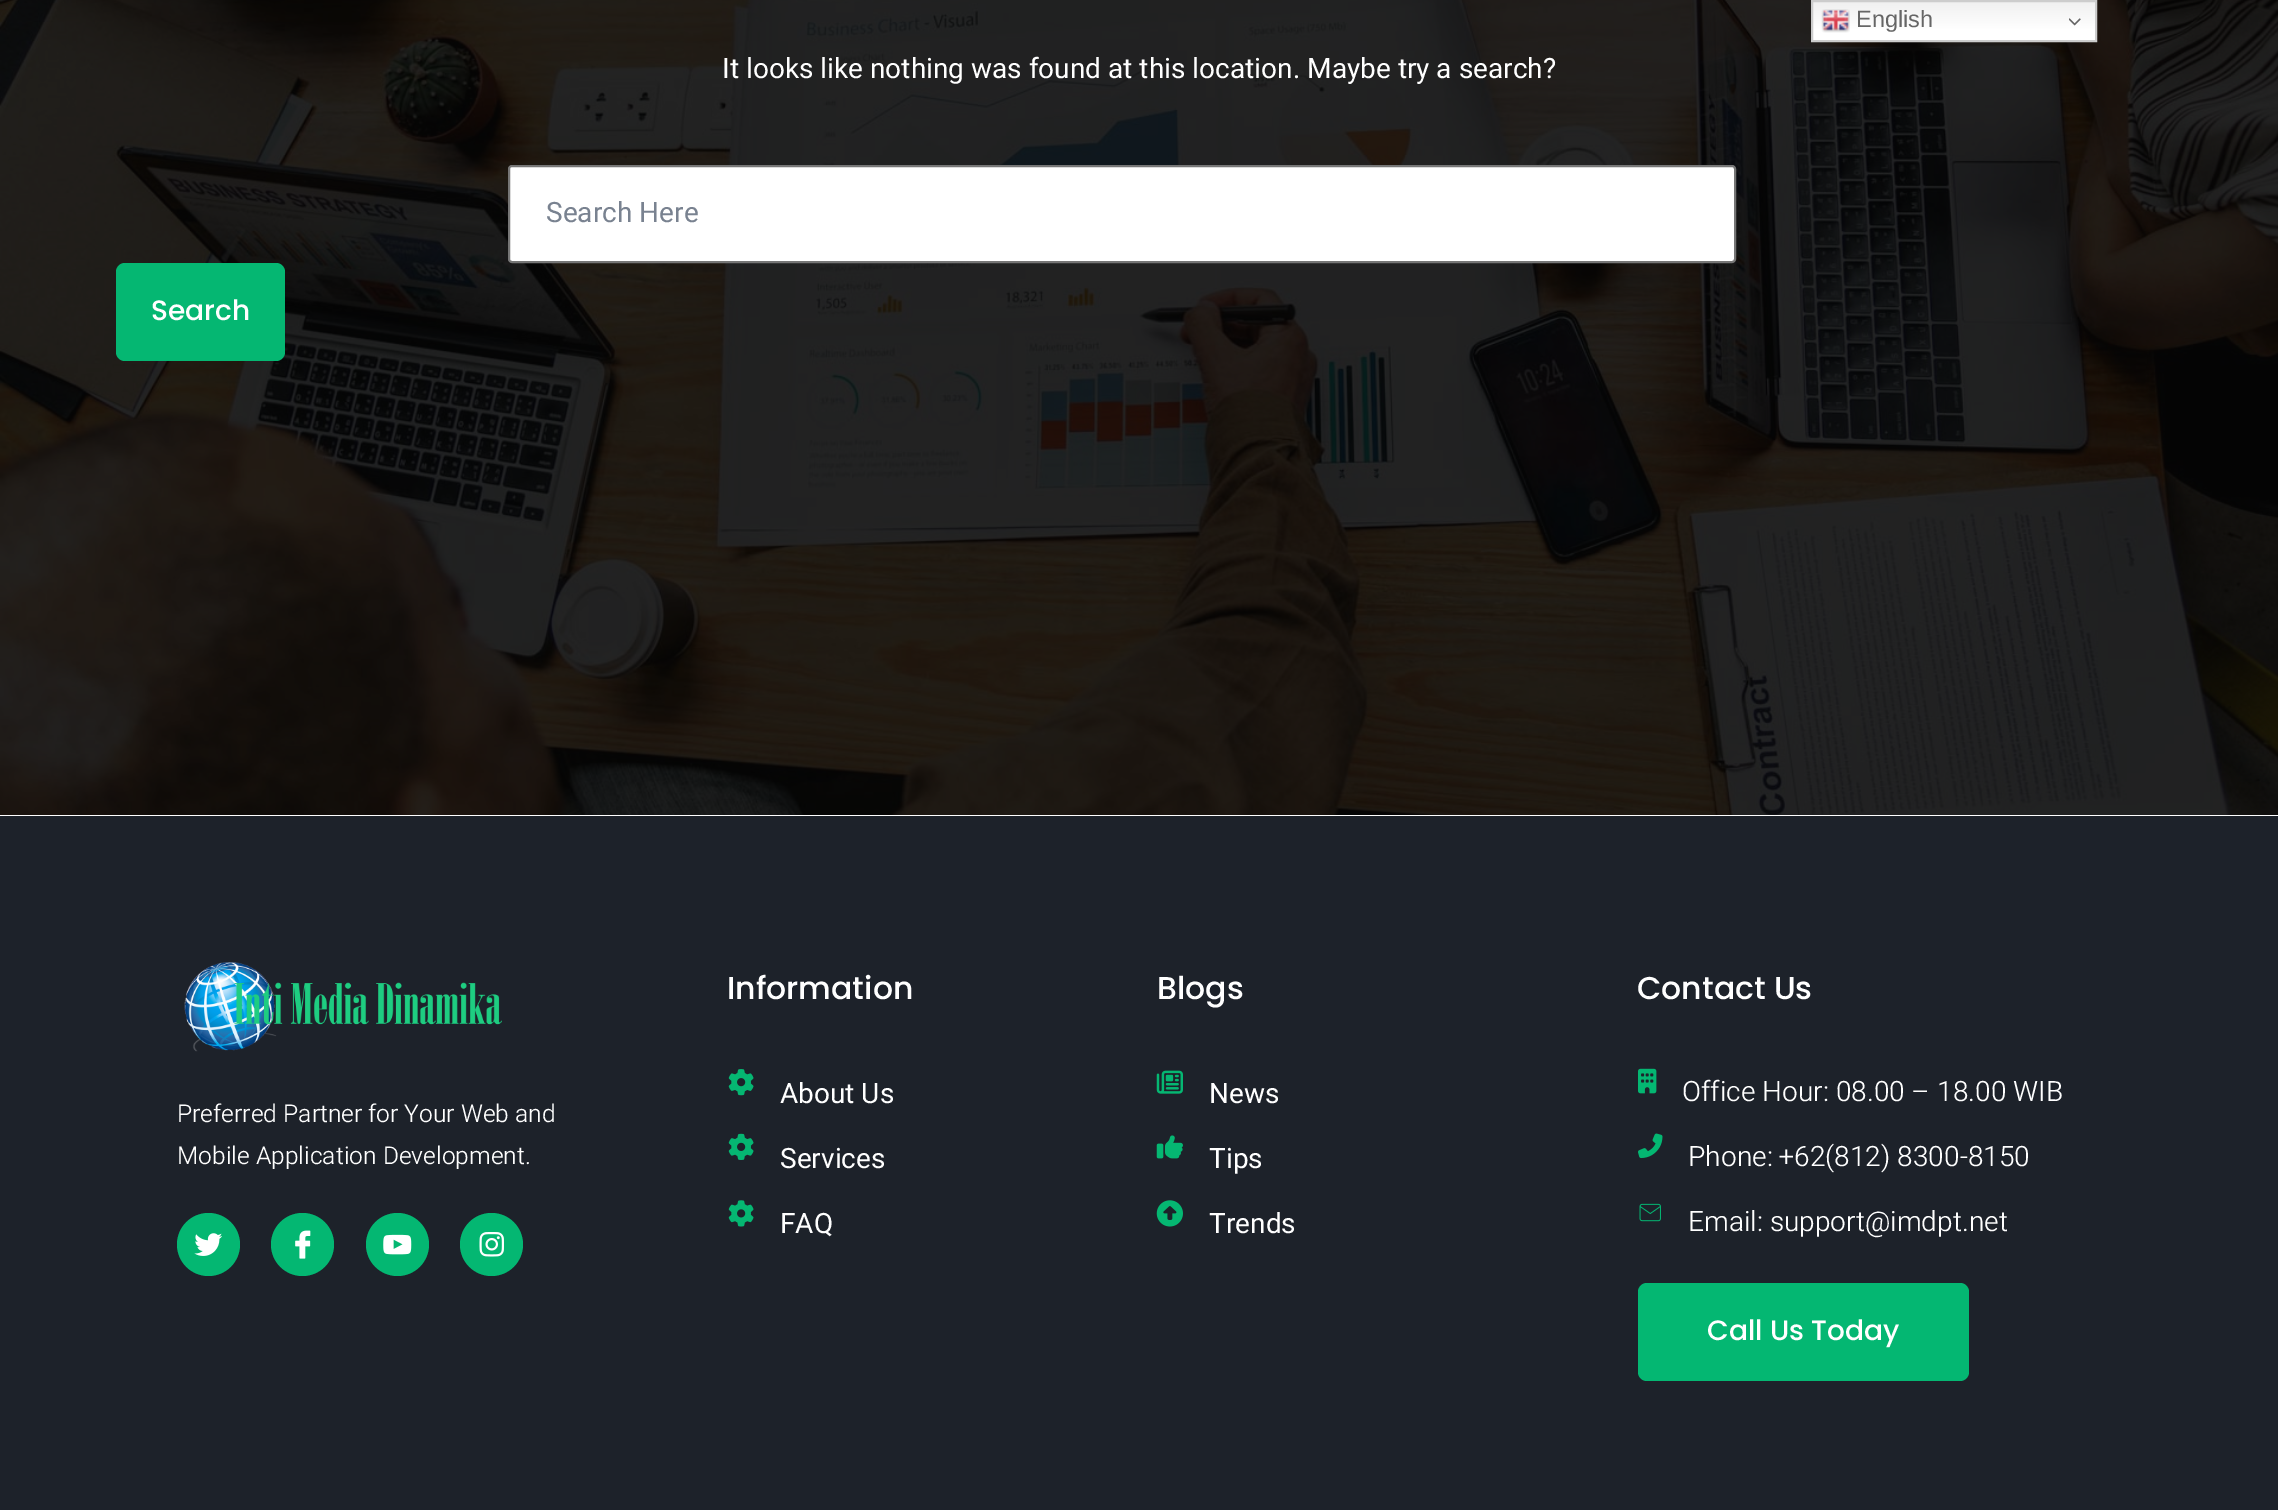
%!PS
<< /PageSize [2278 1510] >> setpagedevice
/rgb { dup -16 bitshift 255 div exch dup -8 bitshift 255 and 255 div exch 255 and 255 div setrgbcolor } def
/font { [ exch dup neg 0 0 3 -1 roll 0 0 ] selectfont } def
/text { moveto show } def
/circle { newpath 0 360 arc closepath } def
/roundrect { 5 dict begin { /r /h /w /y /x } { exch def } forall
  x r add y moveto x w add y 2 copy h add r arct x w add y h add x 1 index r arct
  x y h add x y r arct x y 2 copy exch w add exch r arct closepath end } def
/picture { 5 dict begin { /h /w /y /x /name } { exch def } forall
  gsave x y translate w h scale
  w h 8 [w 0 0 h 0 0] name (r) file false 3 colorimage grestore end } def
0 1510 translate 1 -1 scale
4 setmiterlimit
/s1 { /LiberationSans-Regular 23.5 font 16#666666 rgb } def
/s2 { /Heebo-Regular 28 font 16#FFFFFF rgb } def
/s3 { /Heebo-Regular 28 font 16#798290 rgb } def
/s4 { /Poppins-Medium 28 font 16#FFFFFF rgb } def
/s5 { /Heebo-Light 24.5 font 16#FFFFFF rgb } def
/s6 { /Poppins-Medium 31.5 font 16#FFFFFF rgb } def
/s7 { /Roboto-Regular 28 font 16#FFFFFF rgb } def
/s8 { /Heebo-Light 28 font 16#FFFFFF rgb } def
16#FFFFFF rgb
0 0 2278 1510 rectfill
(pic3.raw) 0 0 2278 815 picture
gsave 1813 2 moveto 2095 2 lineto 2095 40 lineto 1813 40 lineto closepath clip newpath
<< /ShadingType 2 /ColorSpace /DeviceRGB /Coords [1954 0 1954 42] /Extend [true true] /Function << /FunctionType 3 /Domain [0 1] /Functions [<< /FunctionType 2 /Domain [0 1] /C0 [0.937 0.937 0.937] /C1 [1 1 1] /N 1 >> << /FunctionType 2 /Domain [0 1] /C0 [1 1 1] /C1 [1 1 1] /N 1 >>] /Bounds [0.7] /Encode [0 1 0 1] >> >> shfill grestore
16#CCCCCC rgb
2 setlinewidth
1812 1 284 40 rectstroke
(pic1.raw) 1821 9 29 24 picture
s1
(English) 1856 27 text
(pic2.raw) 2069 18 12 8 picture
s2
(It looks like nothing was found at this location. Maybe try a search?) 722 78 text
509 166 1226 96 3 roundrect gsave fill grestore
16#767676 rgb
stroke
s3
(Search Here) 546 222 text
16#05B772 rgb
116 263 169 98 9 roundrect fill
s4
(Search) 151 320 text
16#1D222A rgb
0 816 2278 694 rectfill
(pic4.raw) 184 962 318 90 picture
s5
(Preferred Partner for Your Web and) 177 1122 text
(Mobile Application Development.) 177 1164 text
16#04B772 rgb
208.5 1244.5 31.5 circle fill
(pic5.raw) 194 1233 28 23 picture
302.5 1244.5 31.5 circle fill
(pic6.raw) 295 1230 16 29 picture
397.5 1244.5 31.5 circle fill
(pic7.raw) 383 1234 29 21 picture
491.5 1244.5 31.5 circle fill
(pic8.raw) 479 1232 25 25 picture
s6
(Information) 727 999 text
(pic9.raw) 728 1069 26 27 picture
s7
(About Us) 780 1103 text
(pic10.raw) 728 1133 26 27 picture
(Services) 780 1168 text
(pic11.raw) 728 1200 26 27 picture
(FAQ) 780 1233 text
s6
(Blogs) 1157 999 text
(pic12.raw) 1156 1070 27 24 picture
s7
(News) 1209 1103 text
(pic13.raw) 1156 1135 27 24 picture
(Tips) 1209 1168 text
(pic14.raw) 1156 1200 27 27 picture
(Trends) 1209 1233 text
s6
(Contact Us) 1637 999 text
(pic15.raw) 1638 1068 19 26 picture
s8
(Office Hour: 08.00 – 18.00 WIB) 1682 1101 text
(pic16.raw) 1638 1133 25 26 picture
(Phone: +62\(812\) 8300-8150) 1688 1166 text
(pic17.raw) 1639 1203 22 19 picture
(Email: support@imdpt.net) 1688 1231 text
16#04B772 rgb
1638 1283 331 98 9 roundrect fill
s4
(Call Us Today) 1707 1340 text
showpage
